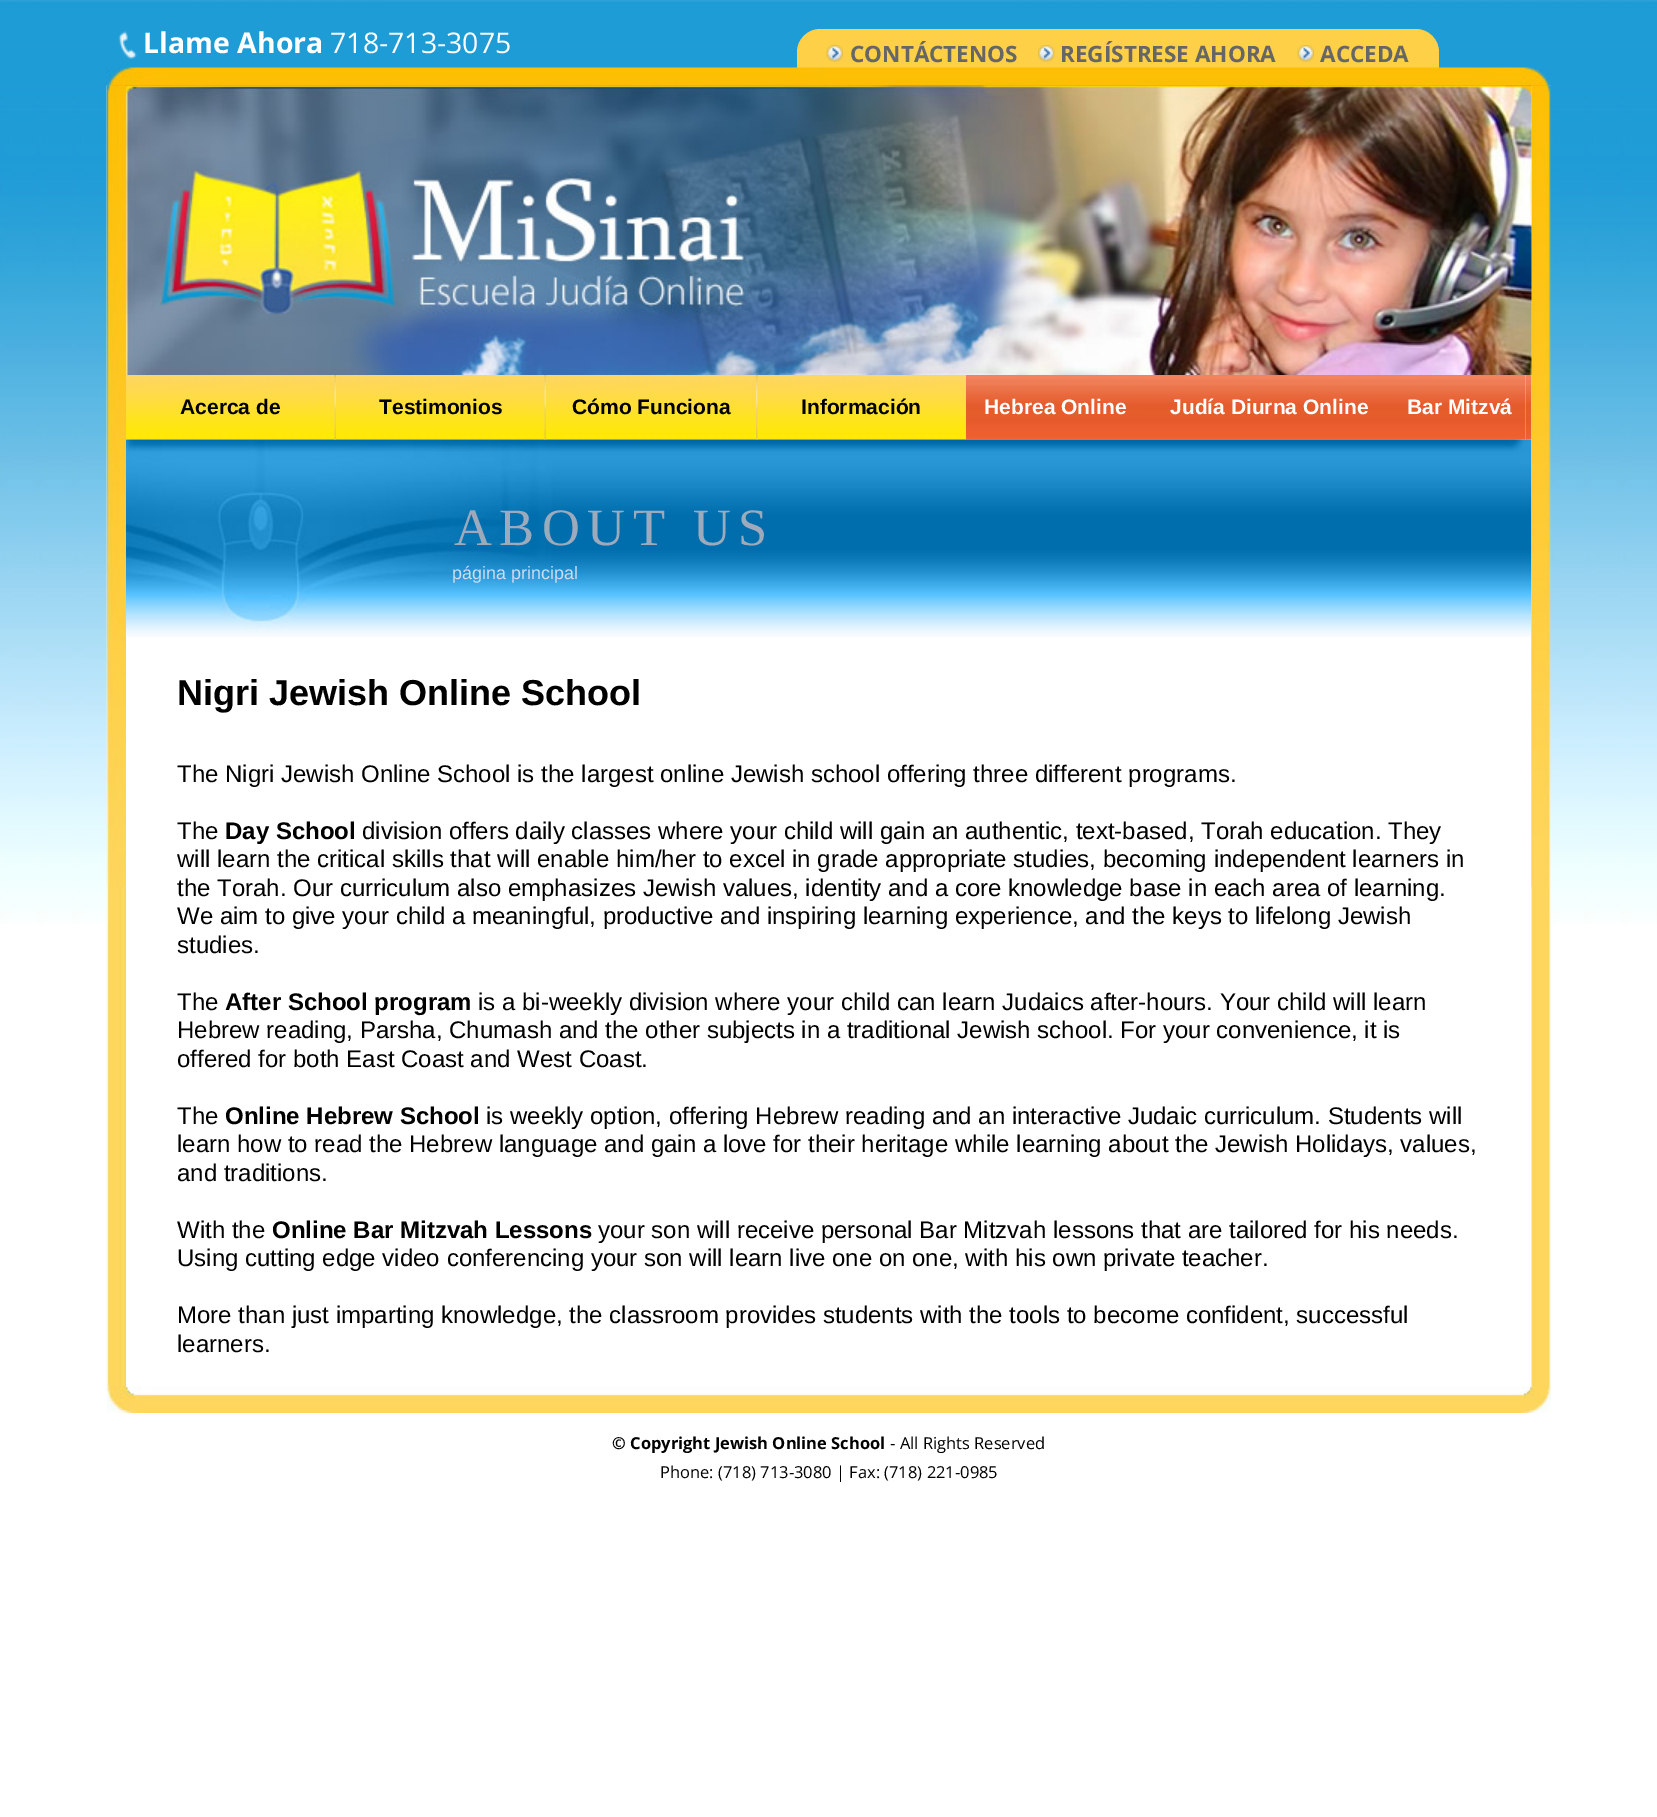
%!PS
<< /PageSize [1657 1817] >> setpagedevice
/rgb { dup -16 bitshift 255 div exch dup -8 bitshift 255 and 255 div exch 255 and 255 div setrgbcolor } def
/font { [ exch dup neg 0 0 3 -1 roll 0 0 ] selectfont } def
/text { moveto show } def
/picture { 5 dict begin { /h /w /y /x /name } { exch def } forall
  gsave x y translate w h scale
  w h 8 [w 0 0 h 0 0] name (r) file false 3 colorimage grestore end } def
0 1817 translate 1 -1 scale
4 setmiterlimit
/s1 { /OpenSans-Bold 28.5 font 16#FFFFFF rgb } def
/s2 { /OpenSans-Regular 28.5 font 16#FFFFFF rgb } def
/s3 { /OpenSans-Bold 22.5 font 16#666666 rgb } def
/s4 { /LiberationSans-Bold 21 font 16#000000 rgb } def
/s5 { /LiberationSans-Bold 21 font 16#FFFFFF rgb } def
/s6 { /LiberationSans-Regular 18 font 16#CEDDEF rgb } def
/s7 { /LiberationSans-Bold 36 font 16#000000 rgb } def
/s8 { /LiberationSans-Regular 24 font 16#000000 rgb } def
/s9 { /LiberationSans-Bold 24 font 16#000000 rgb } def
/s10 { /OpenSans-Bold 16.5 font 16#000000 rgb } def
/s11 { /OpenSans-Regular 16.5 font 16#000000 rgb } def
16#FFFFFF rgb
0 0 1657 1817 rectfill
(pic1.raw) 0 0 1657 924 picture
(pic2.raw) 118 31 19 28 picture
s1
(Llame Ahora) 143 53 text
s2
(718-713-3075) 330 53 text
16#FED047 rgb
820 29 moveto 1416 29 lineto 1428.5 29 1439 39.5 1439 52 curveto 1439 68 lineto 797 68 lineto 797 52 lineto 797 39.5 807.5 29 820 29 curveto closepath fill
(pic3.raw) 826 45 17 17 picture
s3
(CONTÁCTENOS) 850 62 text
(pic4.raw) 1038 45 17 17 picture
(REGÍSTRESE AHORA) 1060 62 text
(pic5.raw) 1297 45 17 17 picture
(ACCEDA) 1320 62 text
(pic7.raw) 106 85 20 1301 picture
(pic8.raw) 106 85 20 802 picture
16#FFFFFF rgb
126 86 1406 838 rectfill
(pic14.raw) 966 375 560 65 picture
(pic15.raw) 1525 375 7 65 picture
(pic10.raw) 126 375 840 65 picture
(pic16.raw) 126 439 1406 198 picture
(pic17.raw) 1531 85 20 1301 picture
(pic18.raw) 1531 85 20 802 picture
(pic6.raw) 106 67 1445 19 picture
(pic9.raw) 126 85 1406 290 picture
s4
(Acerca de) 180 414 text
(pic11.raw) 334 375 2 65 picture
(Testimonios) 379 414 text
(pic12.raw) 544 375 2 65 picture
(Cómo Funciona) 572 414 text
(pic13.raw) 756 375 2 65 picture
(Información) 801 414 text
s5
(Hebrea Online) 984 414 text
(Judía Diurna Online) 1170 414 text
(Bar Mitzvá) 1407 414 text
/LiberationSerif-Regular 52.5 font
16#9CAABC rgb
454 545 moveto 7.5 0 (ABOUT US) ashow
s6
(página principal) 452 579 text
s7
(Nigri Jewish Online School) 177 705 text
s8
(The Nigri Jewish Online School is the largest online Jewish school offering three different programs.) 177 782 text
(The) 177 839 text
s9
(Day School) 225 839 text
s8
(division offers daily classes where your child will gain an authentic, text-based, Torah education. They) 362 839 text
(will learn the critical skills that will enable him/her to excel in grade appropriate studies, becoming independent learners in) 177 867 text
(the Torah. Our curriculum also emphasizes Jewish values, identity and a core knowledge base in each area of learning.) 177 896 text
(We aim to give your child a meaningful, productive and inspiring learning experience, and the keys to lifelong Jewish) 177 924 text
(studies.) 177 953 text
(The) 177 1010 text
s9
(After School program) 225 1010 text
s8
(is a bi-weekly division where your child can learn Judaics after-hours. Your child will learn) 478 1010 text
(Hebrew reading, Parsha, Chumash and the other subjects in a traditional Jewish school. For your convenience, it is) 177 1038 text
(offered for both East Coast and West Coast.) 177 1067 text
(The) 177 1124 text
s9
(Online Hebrew School) 225 1124 text
s8
(is weekly option, offering Hebrew reading and an interactive Judaic curriculum. Students will) 486 1124 text
(learn how to read the Hebrew language and gain a love for their heritage while learning about the Jewish Holidays, values,) 177 1152 text
(and traditions.) 177 1181 text
(With the) 177 1238 text
s9
(Online Bar Mitzvah Lessons) 272 1238 text
s8
(your son will receive personal Bar Mitzvah lessons that are tailored for his needs.) 598 1238 text
(Using cutting edge video conferencing your son will learn live one on one, with his own private teacher.) 177 1266 text
(More than just imparting knowledge, the classroom provides students with the tools to become confident, successful) 177 1323 text
(learners.) 177 1352 text
(pic19.raw) 106 1386 1445 27 picture
s10
(© Copyright Jewish Online School) 612 1449 text
s11
(- All Rights Reserved) 890 1449 text
(Phone: \(718\) 713-3080 | Fax: \(718\) 221-0985) 660 1478 text
showpage
